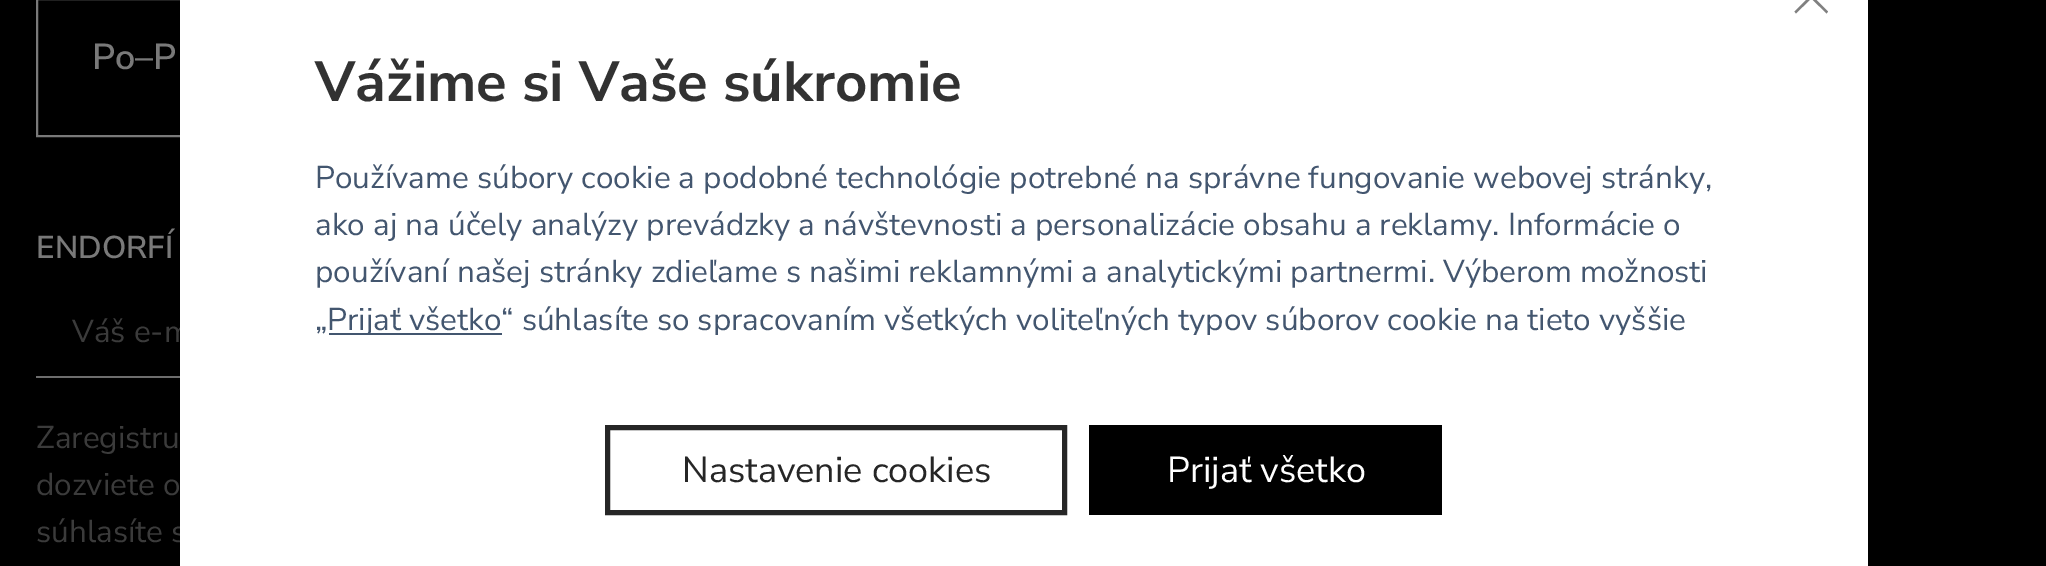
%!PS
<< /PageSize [2046 566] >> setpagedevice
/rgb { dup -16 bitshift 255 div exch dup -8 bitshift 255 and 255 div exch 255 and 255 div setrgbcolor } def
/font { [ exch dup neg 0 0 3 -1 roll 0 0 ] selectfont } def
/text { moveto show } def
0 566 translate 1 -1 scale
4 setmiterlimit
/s1 { /NunitoSans-SemiBold 36 font 16#797979 rgb } def
/s2 { /NunitoSans-SemiBold 31.5 font 16#797979 rgb } def
/s3 { /NunitoSans-Regular 31.5 font 16#3B3B3B rgb } def
/s4 { /NunitoSans-Bold 56.25 font 16#323232 rgb } def
/s5 { /NunitoSans-Regular 31.5 font 16#43566F rgb } def
/s6 { /NunitoSans-Regular 36 font 16#262626 rgb } def
/s7 { /NunitoSans-Regular 36 font 16#FFFFFF rgb } def
16#000000 rgb
0 0 2046 566 rectfill
16#797979 rgb
2 setlinewidth
37 -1 493 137 rectstroke
s1
(Po–P) 92 69 text
s2
(ENDORFÍ) 36 258 text
16#6D6D6D rgb
36 376 144 2 rectfill
s3
(Váš e-m) 72 342 text
(Zaregistru) 36 448 text
(dozviete o) 36 495 text
(súhlasíte s) 36 542 text
16#FFFFFF rgb
180 0 1688 566 rectfill
16#808080 rgb
1796 -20 moveto 1828 11.5 lineto 1826.5 13.5 lineto 1794.5 -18.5 lineto closepath 1794.5 11.5 moveto 1826.5 -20 lineto 1828 -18.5 lineto 1796 13.5 lineto closepath fill
s4
(Vážime si Vaše súkromie) 315 101 text
s5
(Používame súbory cookie a podobné technológie potrebné na správne fungovanie webovej stránky,) 315 188 text
(ako aj na účely analýzy prevádzky a návštevnosti a personalizácie obsahu a reklamy. Informácie o) 315 235 text
(používaní našej stránky zdieľame s našimi reklamnými a analytickými partnermi. Výberom možnosti) 315 282 text
(„) 315 330 text
329 333 173 2 rectfill
gsave
180 52 1688 283 rectclip
(Prijať všetko“ súhlasíte so spracovaním všetkých voliteľných typov súborov cookie na tieto vyššie) 327 330 text
grestore
16#262626 rgb
5 setlinewidth
607.5 427.5 457 85 rectstroke
s6
(Nastavenie cookies) 682 482 text
16#000000 rgb
1089 425 353 90 rectfill
s7
(Prijať všetko) 1167 482 text
showpage
